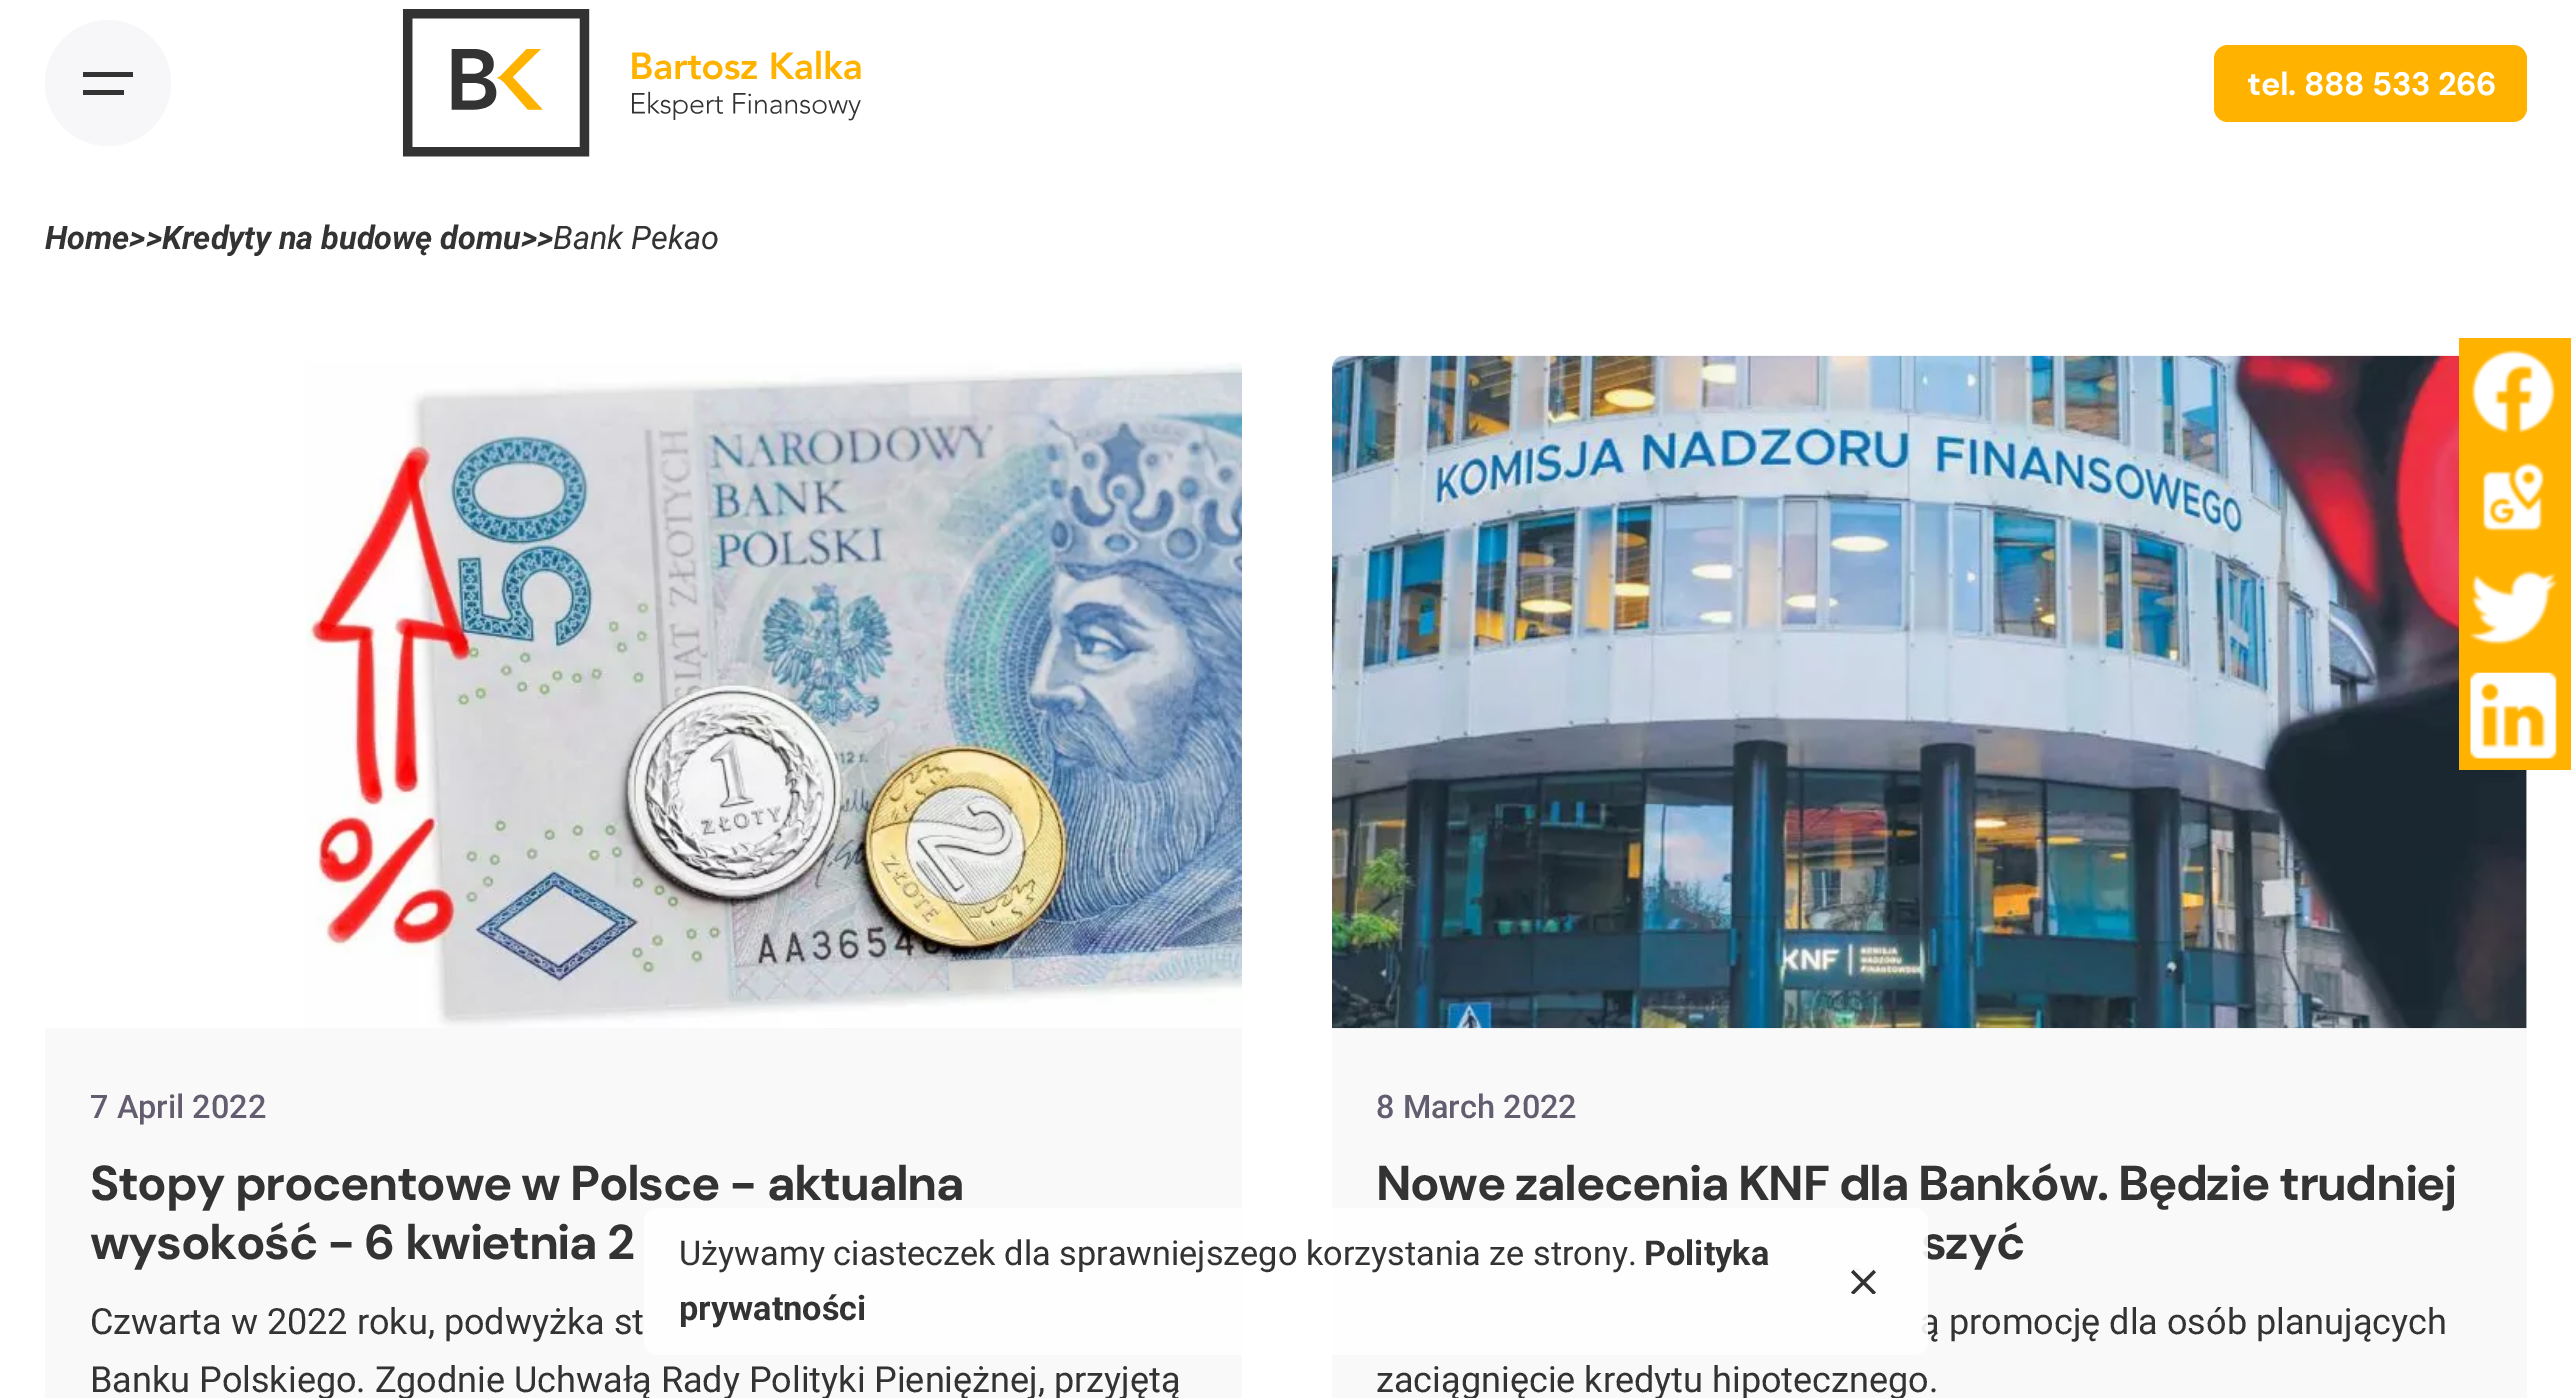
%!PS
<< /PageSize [2571 1398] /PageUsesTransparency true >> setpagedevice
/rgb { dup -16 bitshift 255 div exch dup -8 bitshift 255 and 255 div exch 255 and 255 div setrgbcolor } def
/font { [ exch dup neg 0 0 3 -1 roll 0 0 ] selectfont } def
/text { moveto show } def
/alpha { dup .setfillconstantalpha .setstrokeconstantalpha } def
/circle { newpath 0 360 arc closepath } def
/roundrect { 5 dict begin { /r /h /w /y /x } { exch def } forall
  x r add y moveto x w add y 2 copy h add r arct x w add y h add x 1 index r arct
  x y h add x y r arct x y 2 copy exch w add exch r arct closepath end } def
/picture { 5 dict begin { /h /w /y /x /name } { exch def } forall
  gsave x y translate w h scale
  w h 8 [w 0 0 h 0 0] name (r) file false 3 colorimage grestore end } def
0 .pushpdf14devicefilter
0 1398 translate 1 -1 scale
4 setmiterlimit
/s1 { /Roboto-BoldItalic 32.5 font 16#333333 rgb } def
/s2 { /Roboto-Italic 32.5 font 16#333333 rgb } def
/s3 { /Roboto-Medium 32.5 font 16#635D6F rgb } def
/s4 { /Roboto-Regular 36.05 font 16#333333 rgb } def
/s5 { /Roboto-Regular 34.25 font 16#333333 rgb } def
/s6 { /Roboto-Bold 34.25 font 16#333333 rgb } def
16#FFFFFF rgb
0 0 2571 1398 rectfill
16#F7F6F8 rgb
108 83 63 circle fill
16#333333 rgb
83 72 50 5 rectfill
83 90 41 5 rectfill
(pic1.raw) 402 9 459 148 picture
16#FFB300 rgb
2214 45 313 77 14 roundrect fill
/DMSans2-Bold 32.5 font
16#FFFFFF rgb
2247 95 moveto -0.3 0 (tel. 888 533 266) ashow
s1
(Home>>Kredyty na budowę domu) 45 249 text
(>>) 521 249 text
s2
(Bank Pekao) 553 249 text
(pic2.raw) 305 362 937 666 picture
16#FAF9FA rgb
45 1028 1197 370 rectfill
s3
(7 April 2022) 90 1118 text
/DMSans-Bold 48.9 font
16#333333 rgb
90 1200 moveto 0.5 0 32 -1.45 0 (Stopy procentowe w Polsce - aktualna) awidthshow
90 1259 moveto 0.5 0 32 -1.45 0 (wysokość - 6 kwietnia 2) awidthshow
s4
(Czwarta w 2022 roku, podwyżka st) 90 1334 text
90 1392 moveto -0.25 0 32 (Banku Polskiego. Zgodnie Uchwałą Rady Polityki Pieniężnej, przyjętą) widthshow
16#FAF9FA rgb
1332 1028 1195 370 rectfill
(pic3.raw) 1332 355 1195 674 picture
s3
(8 March 2022) 1376 1118 text
/DMSans-Bold 48.9 font
16#333333 rgb
1376 1200 moveto 0.5 0 32 -1.45 0 (Nowe zalecenia KNF dla Banków. Będzie trudniej) awidthshow
1921 1259 moveto 1 0 32 -1.45 0 (szyć) awidthshow
s4
(ą promocję dla osób planujących) 1920 1334 text
(zaciągnięcie kredytu hipotecznego.) 1376 1392 text
16#FFB300 rgb
2459 338 112 432 rectfill
(pic4.raw) 2471 350 85 83 picture
(pic5.raw) 2482 462 63 70 picture
(pic6.raw) 2470 570 87 75 picture
(pic7.raw) 2470 672 87 87 picture
0.9 alpha
16#FFFFFF rgb
644 1208 1284 147 14 roundrect fill
1 alpha
s5
(Używamy ciasteczek dla sprawniejszego korzystania ze strony.) 679 1265 text
s6
(Polityka) 1644 1265 text
(prywatności) 679 1320 text
(pic8.raw) 1851 1269 25 25 picture
.poppdf14devicefilter showpage
